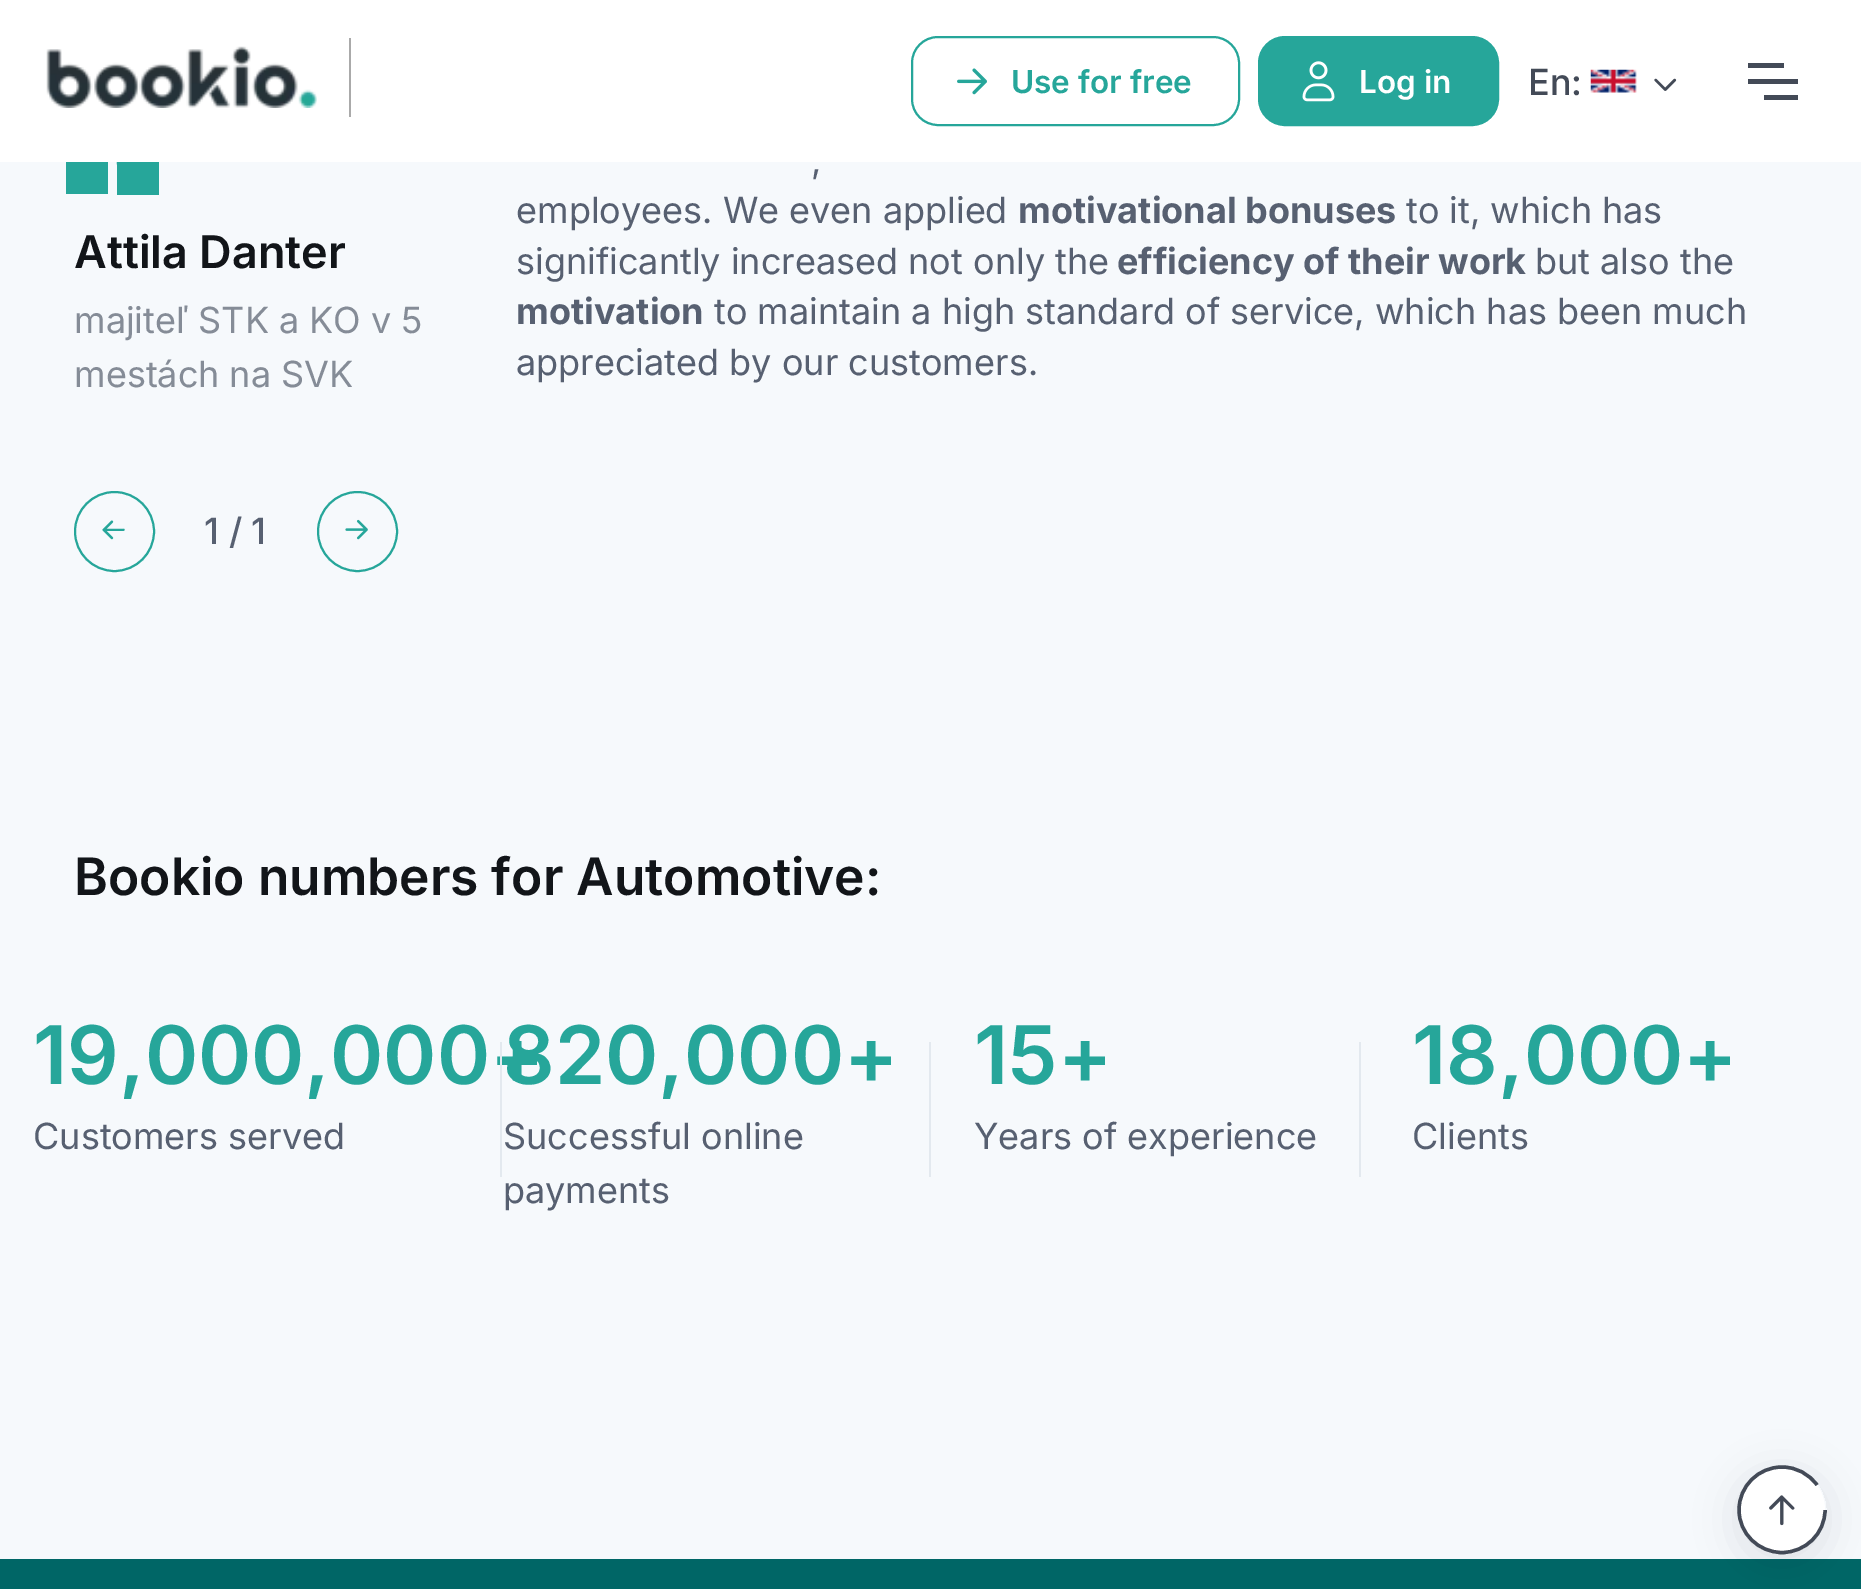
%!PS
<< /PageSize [1861 1589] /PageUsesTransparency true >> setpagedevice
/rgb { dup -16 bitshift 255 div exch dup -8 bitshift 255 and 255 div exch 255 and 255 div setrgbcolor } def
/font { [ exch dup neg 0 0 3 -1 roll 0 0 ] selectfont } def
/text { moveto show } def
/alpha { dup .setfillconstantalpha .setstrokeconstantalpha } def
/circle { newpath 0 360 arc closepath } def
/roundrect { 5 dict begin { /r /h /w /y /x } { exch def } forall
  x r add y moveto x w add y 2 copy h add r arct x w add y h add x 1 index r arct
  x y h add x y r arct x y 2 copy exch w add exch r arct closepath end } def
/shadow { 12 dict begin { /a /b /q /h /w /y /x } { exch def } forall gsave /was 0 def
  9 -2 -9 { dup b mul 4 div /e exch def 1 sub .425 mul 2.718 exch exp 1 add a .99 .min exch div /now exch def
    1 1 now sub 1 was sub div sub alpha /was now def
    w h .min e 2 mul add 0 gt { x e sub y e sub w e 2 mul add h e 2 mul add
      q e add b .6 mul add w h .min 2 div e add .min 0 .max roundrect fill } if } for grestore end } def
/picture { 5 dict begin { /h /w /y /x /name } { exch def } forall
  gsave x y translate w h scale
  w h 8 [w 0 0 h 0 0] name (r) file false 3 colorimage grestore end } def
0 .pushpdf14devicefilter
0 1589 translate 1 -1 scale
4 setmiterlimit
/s1 { /Inter-SemiBold 31.5 font 16#26A69A rgb } def
/s2 { /Inter-SemiBold 31.5 font 16#FFFFFF rgb } def
/s3 { /Inter-Medium 36 font 16#434A57 rgb } def
/s4 { /Inter-SemiBold 45 font 16#121519 rgb } def
/s5 { /Inter-Regular 36 font 16#858C97 rgb } def
/s6 { /Inter-Medium 36 font 16#576071 rgb } def
/s7 { /Inter-Regular 36 font 16#576071 rgb } def
/s8 { /Inter-Bold 36 font 16#576071 rgb } def
/s9 { /Inter-SemiBold 51.5 font 16#121519 rgb } def
/s10 { /Inter-SemiBold 80.75 font 16#26A69A rgb } def
16#F6F9FC rgb
0 0 1861 1589 rectfill
16#26A69A rgb
66 151 moveto 66 194 lineto 108 194 lineto 108 151 lineto 79 151 lineto 79 135 92 131 105 131 curveto 105 117 lineto 84 117 66 127 66 151 curveto closepath 157 131 moveto 157 117 lineto 139 117 121 124 117 143 curveto 116 150 117 158 117 166 curveto 117 195 lineto 159 195 lineto 159 151 lineto 130 151 lineto 130 135 143 131 157 131 curveto closepath fill
16#FFFFFF rgb
0 0 1861 162 rectfill
16#AAAAAA rgb
349 38 2 79 rectfill
(pic1.raw) 46 46 271 62 picture
16#26A69A rgb
2 setlinewidth
912 37 327 88 26 roundrect stroke
(pic2.raw) 957 68 30 27 picture
s1
(Use for free) 1011 93 text
1259 37 239 88 26 roundrect gsave fill grestore
stroke
(pic3.raw) 1302 61 33 41 picture
s2
(Log in) 1359 93 text
s3
(En:) 1528 95 text
(pic4.raw) 1590 69 47 24 picture
(pic5.raw) 1654 78 23 13 picture
1748 79 50 5 rectfill
1748 63 36 5 rectfill
1764 95 34 5 rectfill
s4
(Attila Danter) 74 268 text
s5
(majiteľ STK a KO v 5) 74 333 text
(mestách na SVK) 74 387 text
16#26A69A rgb
114.5 531.5 39.5 circle stroke
(pic6.raw) 102 520 23 20 picture
s6
(1 / 1) 204 544 text
16#26A69A rgb
357.5 531.5 39.5 circle stroke
(pic7.raw) 345 519 23 21 picture
s7
(,) 811 173 text
(employees. We even applied) 516 223 text
s8
(motivational bonuses) 1018 223 text
s7
(to it, which has) 1406 223 text
(significantly increased not only the) 516 274 text
s8
(efficiency of their work) 1117 274 text
s7
(but also the) 1535 274 text
s8
(motivation) 516 324 text
s7
(to maintain a high standard of service, which has been much) 714 324 text
(appreciated by our customers.) 516 375 text
s9
(Bookio numbers for Automotive:) 74 895 text
s10
(19,000,000+) 33 1084 text
s7
(Customers served) 33 1149 text
16#E3E9EF rgb
500 1042 2 135 rectfill
s10
(820,000+) 503 1084 text
s7
(Successful online) 503 1149 text
(payments) 503 1203 text
16#E3E9EF rgb
929 1042 2 135 rectfill
s10
(15+) 974 1084 text
s7
(Years of experience) 974 1149 text
16#E3E9EF rgb
1359 1042 2 135 rectfill
s10
(18,000+) 1412 1084 text
s7
(Clients) 1412 1149 text
16#006666 rgb
0 1559 1861 30 rectfill
gsave
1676 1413 moveto 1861 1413 lineto 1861 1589 lineto 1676 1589 lineto closepath 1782 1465 moveto 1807 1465 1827 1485 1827 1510 curveto 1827 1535 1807 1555 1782 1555 curveto 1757 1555 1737 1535 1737 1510 curveto 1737 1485 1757 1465 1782 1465 curveto closepath eoclip newpath
16#121519 rgb
1737 1474 90 90 45 20 0.1 shadow
grestore
16#FFFFFF rgb
1782 1510 43 circle fill
(pic8.raw) 1769 1495 26 31 picture
16#434A57 rgb
3.4 setlinewidth
1825 1510 moveto 1825 1533.5 1805.5 1552.5 1782 1552.5 curveto 1758.5 1552.5 1739 1533.5 1739 1510 curveto 1739 1486 1758.5 1467 1782 1467 curveto 1796.5 1467 1809 1474 1817 1485 curveto stroke
.poppdf14devicefilter showpage
